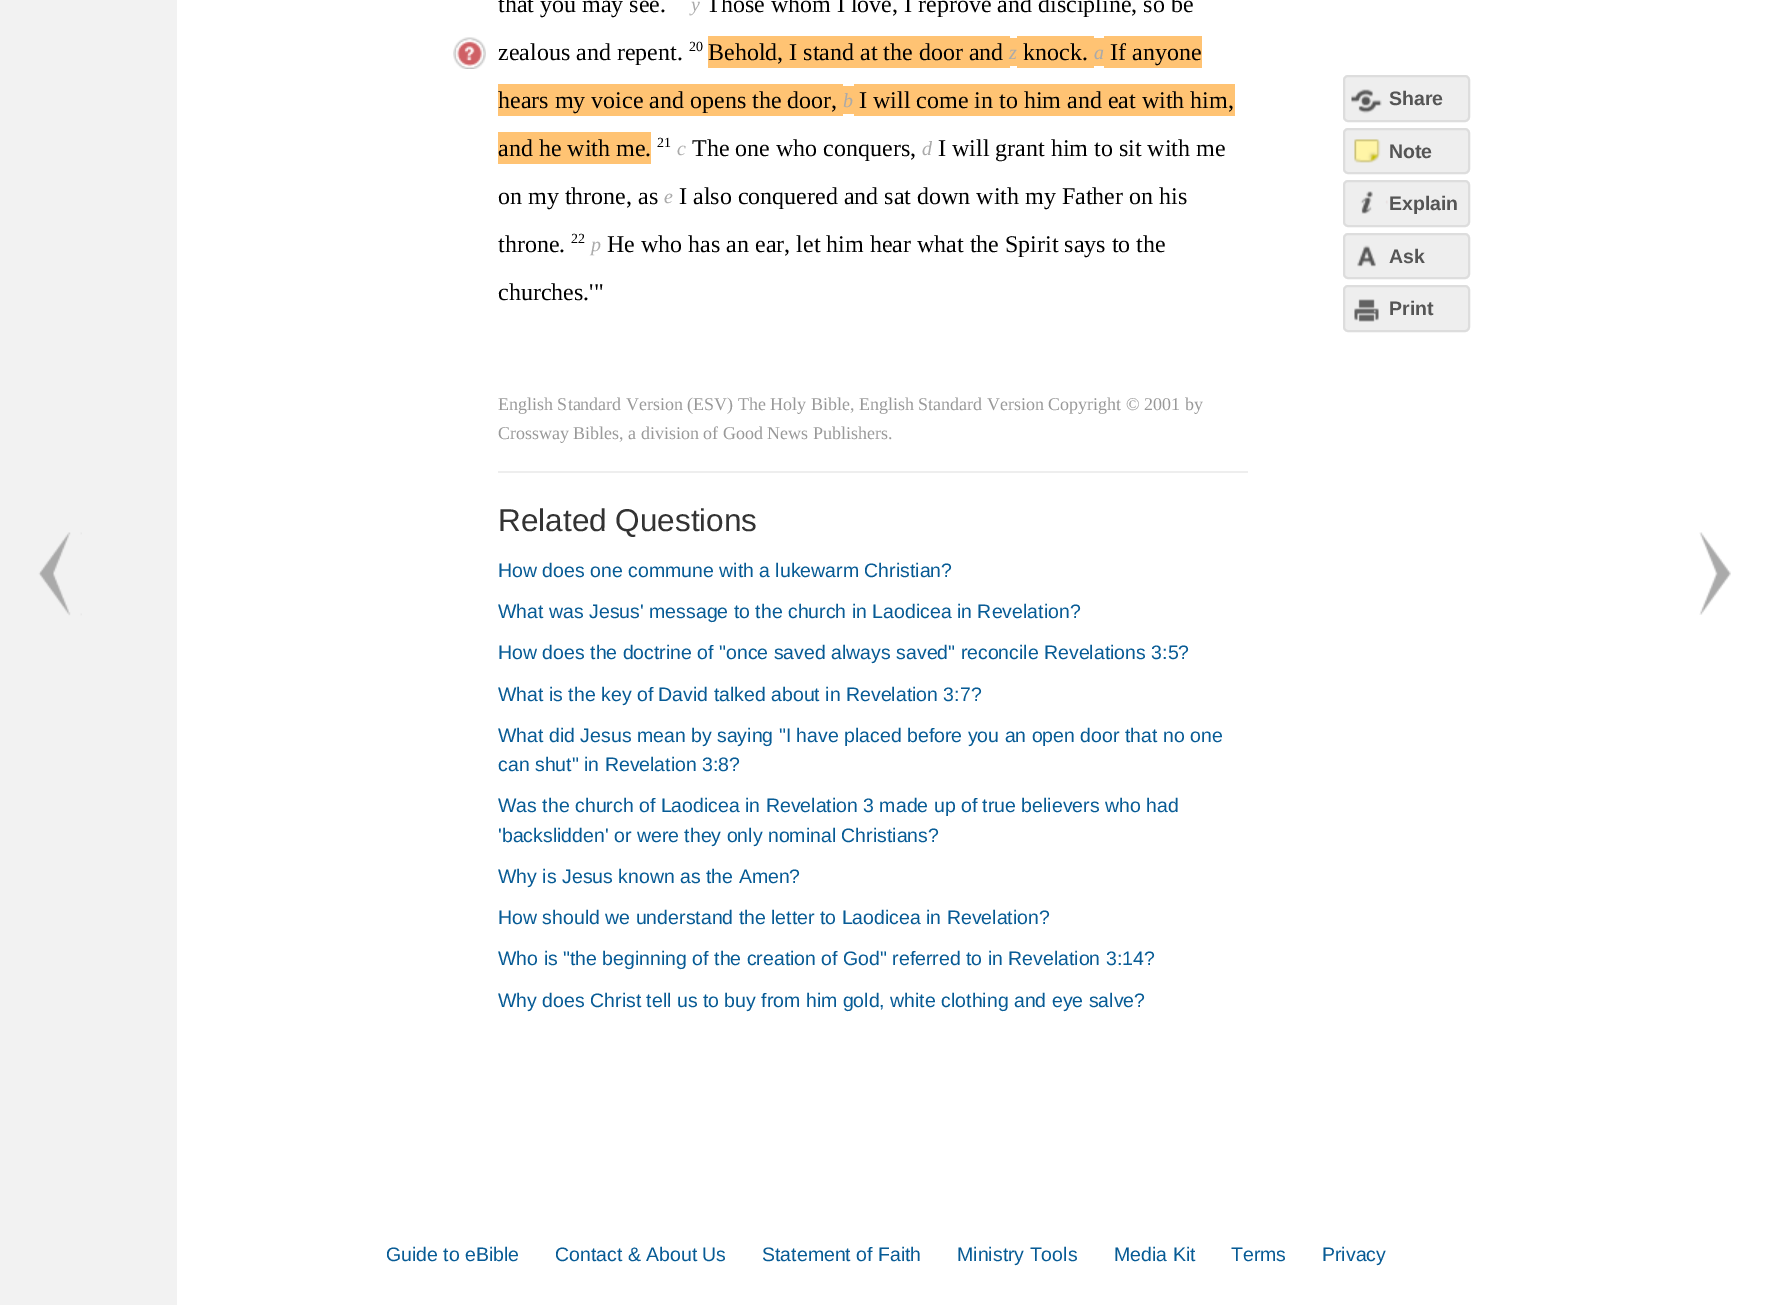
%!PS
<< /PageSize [1776 1305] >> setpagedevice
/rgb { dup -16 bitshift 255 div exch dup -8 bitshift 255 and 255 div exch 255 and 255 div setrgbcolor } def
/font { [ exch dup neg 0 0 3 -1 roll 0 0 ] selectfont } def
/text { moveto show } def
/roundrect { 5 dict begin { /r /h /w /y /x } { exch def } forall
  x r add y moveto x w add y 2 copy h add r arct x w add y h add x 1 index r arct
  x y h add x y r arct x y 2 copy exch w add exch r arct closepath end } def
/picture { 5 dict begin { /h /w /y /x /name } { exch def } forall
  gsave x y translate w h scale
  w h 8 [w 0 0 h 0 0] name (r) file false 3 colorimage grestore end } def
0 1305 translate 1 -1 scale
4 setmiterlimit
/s1 { /LiberationSerif-Regular 24 font 16#000000 rgb } def
/s2 { /LiberationSerif-Italic 20 font 16#AAAAAA rgb } def
/s3 { /LiberationSerif-Regular 14 font 16#000000 rgb } def
/s4 { /LiberationSerif-Regular 18 font 16#999999 rgb } def
/s5 { /LiberationSans-Regular 31.5 font 16#333333 rgb } def
/s6 { /LiberationSans-Regular 19.5 font 16#075B95 rgb } def
/s7 { /LiberationSans-Bold 19.5 font 16#555555 rgb } def
16#FFFFFF rgb
0 0 1776 1305 rectfill
16#F2F2F2 rgb
0 0 177 1305 rectfill
(pic1.raw) 38 532 44 84 picture
(pic2.raw) 1699 532 32 83 picture
(pic3.raw) 453 37 33 32 picture
s1
(that you may see.) 498 12 text
s2
(y) 691 11 text
s1
(Those whom I love, I reprove and discipline, so be) 706 12 text
(zealous and repent.) 498 60 text
s3
(20) 689 51 text
16#FFC373 rgb
708 36 302 32 rectfill
s1
(Behold, I stand at the door and) 708 60 text
16#FFC373 rgb
1010 38 7 28 rectfill
s2
(z) 1009 59 text
16#FFC373 rgb
1017 36 77 32 rectfill
s1
(knock.) 1023 60 text
16#FFC373 rgb
1094 38 10 28 rectfill
s2
(a) 1094 59 text
16#FFC373 rgb
1104 36 98 32 rectfill
s1
(If anyone) 1110 60 text
16#FFC373 rgb
498 84 345 32 rectfill
s1
(hears my voice and opens the door,) 498 108 text
16#FFC373 rgb
843 86 11 28 rectfill
s2
(b) 843 107 text
16#FFC373 rgb
854 84 381 32 rectfill
s1
(I will come in to him and eat with him,) 859 108 text
16#FFC373 rgb
498 132 153 32 rectfill
s1
(and he with me.) 498 156 text
s3
(21) 657 147 text
s2
(c) 677 155 text
s1
(The one who conquers,) 692 156 text
s2
(d) 922 155 text
s1
(I will grant him to sit with me) 938 156 text
(on my throne, as) 498 204 text
s2
(e) 664 203 text
s1
(I also conquered and sat down with my Father on his) 679 204 text
(throne.) 498 252 text
s3
(22) 571 243 text
s2
(p) 591 251 text
s1
(He who has an ear, let him hear what the Spirit says to the) 607 252 text
(churches.'") 498 300 text
s4
(English Standard Version \(ESV\) The Holy Bible, English Standard Version Copyright © 2001 by) 498 410 text
(Crossway Bibles, a division of Good News Publishers.) 498 439 text
16#EEEEEE rgb
498 471 750 2 rectfill
s5
(Related Questions) 498 531 text
s6
(How does one commune with a lukewarm Christian?) 498 577 text
(What was Jesus' message to the church in Laodicea in Revelation?) 498 618 text
(How does the doctrine of "once saved always saved" reconcile Revelations 3:5?) 498 659 text
(What is the key of David talked about in Revelation 3:7?) 498 701 text
(What did Jesus mean by saying "I have placed before you an open door that no one) 498 742 text
(can shut" in Revelation 3:8?) 498 771 text
(Was the church of Laodicea in Revelation 3 made up of true believers who had) 498 812 text
('backslidden' or were they only nominal Christians?) 498 842 text
(Why is Jesus known as the Amen?) 498 883 text
(How should we understand the letter to Laodicea in Revelation?) 498 924 text
(Who is "the beginning of the creation of God" referred to in Revelation 3:14?) 498 965 text
(Why does Christ tell us to buy from him gold, white clothing and eye salve?) 498 1007 text
16#EEEEEE rgb
1344 76 125 45 4 roundrect gsave fill grestore
16#DDDDDD rgb
2 setlinewidth
stroke
(pic4.raw) 1351 89 31 25 picture
s7
(Share) 1389 105 text
16#EEEEEE rgb
1344 129 125 44 4 roundrect gsave fill grestore
16#DDDDDD rgb
stroke
(pic5.raw) 1354 139 27 24 picture
s7
(Note) 1389 158 text
16#EEEEEE rgb
1344 181 125 45 4 roundrect gsave fill grestore
16#DDDDDD rgb
stroke
(pic6.raw) 1360 191 28 23 picture
s7
(Explain) 1389 210 text
16#EEEEEE rgb
1344 234 125 44 4 roundrect gsave fill grestore
16#DDDDDD rgb
stroke
(pic7.raw) 1357 245 19 22 picture
s7
(Ask) 1389 263 text
16#EEEEEE rgb
1344 286 125 45 4 roundrect gsave fill grestore
16#DDDDDD rgb
stroke
(pic8.raw) 1354 299 25 23 picture
s7
(Print) 1389 315 text
s6
(Guide to eBible) 386 1261 text
(Contact & About Us) 555 1261 text
(Statement of Faith) 762 1261 text
(Ministry Tools) 957 1261 text
(Media Kit) 1114 1261 text
(Terms) 1231 1261 text
(Privacy) 1322 1261 text
showpage
